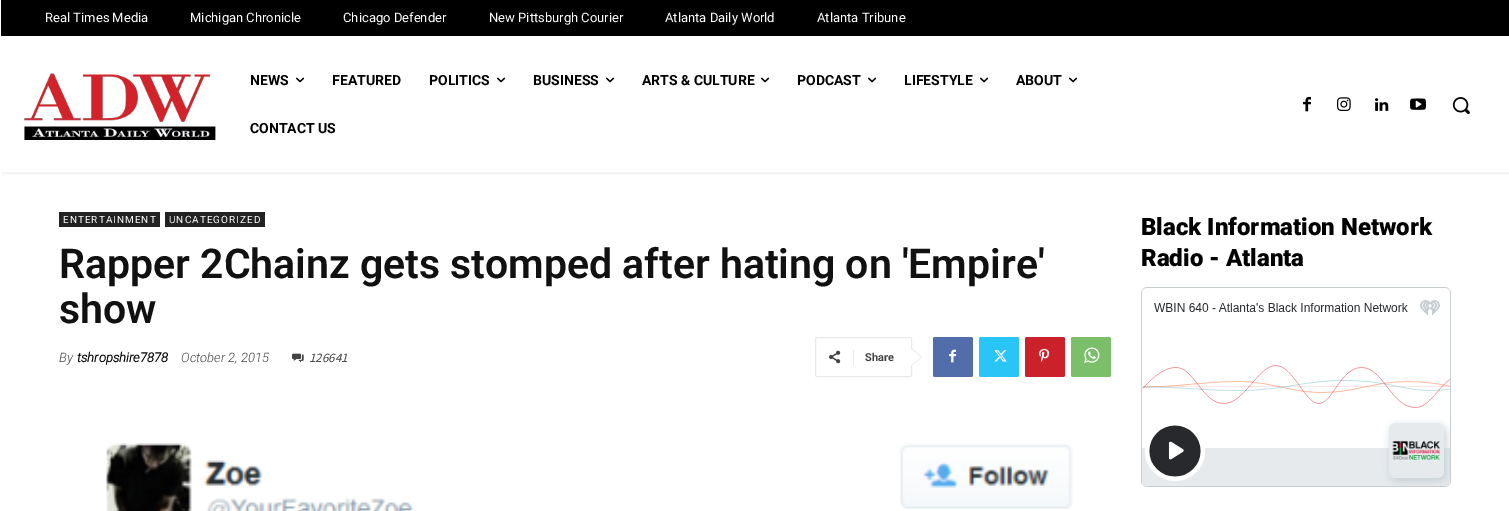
%!PS
<< /PageSize [1509 511] /PageUsesTransparency true >> setpagedevice
/rgb { dup -16 bitshift 255 div exch dup -8 bitshift 255 and 255 div exch 255 and 255 div setrgbcolor } def
/font { [ exch dup neg 0 0 3 -1 roll 0 0 ] selectfont } def
/text { moveto show } def
/alpha { dup .setfillconstantalpha .setstrokeconstantalpha } def
/roundrect { 5 dict begin { /r /h /w /y /x } { exch def } forall
  x r add y moveto x w add y 2 copy h add r arct x w add y h add x 1 index r arct
  x y h add x y r arct x y 2 copy exch w add exch r arct closepath end } def
/shadow { 12 dict begin { /a /b /q /h /w /y /x } { exch def } forall gsave /was 0 def
  9 -2 -9 { dup b mul 4 div /e exch def 1 sub .425 mul 2.718 exch exp 1 add a .99 .min exch div /now exch def
    1 1 now sub 1 was sub div sub alpha /was now def
    w h .min e 2 mul add 0 gt { x e sub y e sub w e 2 mul add h e 2 mul add
      q e add b .6 mul add w h .min 2 div e add .min 0 .max roundrect fill } if } for grestore end } def
/picture { 5 dict begin { /h /w /y /x /name } { exch def } forall
  gsave x y translate w h scale
  w h 8 [w 0 0 h 0 0] name (r) file false 3 colorimage grestore end } def
0 .pushpdf14devicefilter
0 511 translate 1 -1 scale
4 setmiterlimit
/s1 { /Roboto-Regular 13 font 16#FFFFFF rgb } def
/s2 { /Roboto-Bold 14 font 16#000000 rgb } def
/s3 { /Roboto-SemiBold 41 font 16#111111 rgb } def
/s4 { /Roboto-LightItalic 13 font 16#444444 rgb } def
/s5 { /Roboto-BoldItalic 13 font 16#000000 rgb } def
/s6 { /SourceSansPro-Italic 13 font 16#444444 rgb } def
/s7 { /Roboto-Bold 11 font 16#444444 rgb } def
/s8 { /Roboto-Black 24 font 16#000000 rgb } def
16#FFFFFF rgb
0 0 1509 511 rectfill
16#000000 rgb
1 0 1508 36 rectfill
s1
(Real Times Media) 45 22 text
(Michigan Chronicle) 190 22 text
(Chicago Defender) 343 22 text
(New Pittsburgh Courier) 489 22 text
(Atlanta Daily World) 665 22 text
(Atlanta Tribune) 817 22 text
(pic1.raw) 24 73 192 67 picture
(pic3.raw) 1303 96 8 16 picture
(pic4.raw) 1337 97 14 14 picture
(pic5.raw) 1375 98 14 13 picture
(pic6.raw) 1410 98 16 12 picture
gsave
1 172 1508 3 rectclip
16#000000 rgb
1 38 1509 136 0 2 0.06 shadow
grestore
s2
(NEWS) 250 85 text
(pic2.raw) 296 77 9 6 picture
(FEATURED) 332 85 text
(POLITICS) 429 85 text
(pic2.raw) 497 77 9 6 picture
(BUSINESS) 533 85 text
(pic2.raw) 606 77 9 6 picture
(ARTS & CULTURE) 642 85 text
(pic2.raw) 761 77 9 6 picture
(PODCAST) 797 85 text
(pic2.raw) 868 77 9 6 picture
(LIFESTYLE) 904 85 text
(pic2.raw) 980 77 9 6 picture
(ABOUT) 1016 85 text
(pic2.raw) 1069 77 9 6 picture
(CONTACT US) 250 133 text
(pic7.raw) 1452 97 18 18 picture
16#222222 rgb
59 212 101 15 rectfill
/Roboto-Regular 10 font
16#FFFFFF rgb
63 223 moveto 1 0 (ENTERTAINMENT) ashow
16#222222 rgb
165 212 100 15 rectfill
16#FFFFFF rgb
169 223 moveto 1 0 (UNCATEGORIZED) ashow
s3
(Rapper 2Chainz gets stomped after hating on 'Empire') 59 278 text
(show) 59 323 text
s4
(By) 59 362 text
s5
(tshropshire7878) 77 362 text
s4
(October 2, 2015) 181 362 text
(pic8.raw) 292 353 12 10 picture
s6
(126641) 309 362 text
16#E9E9E9 rgb
815.5 337.5 96 39 1.5 roundrect stroke
911 366 moveto 911 348 lineto 922 357 lineto closepath fill
(pic9.raw) 829 350 12 14 picture
16#EBEBEB rgb
853 350 1 16 rectfill
s7
(Share) 865 361 text
16#FFFFFF rgb
911 365 moveto 911 349 lineto 921 357 lineto closepath fill
16#516EAB rgb
933 337 40 40 2 roundrect fill
(pic10.raw) 949 349 7 14 picture
16#29C5F6 rgb
979 337 40 40 2 roundrect fill
(pic11.raw) 994 350 13 12 picture
16#CA212A rgb
1025 337 40 40 2 roundrect fill
(pic12.raw) 1039 348 11 14 picture
16#7BBF6A rgb
1071 337 40 40 2 roundrect fill
(pic13.raw) 1084 347 16 16 picture
(pic14.raw) 106 443 967 68 picture
s8
(Black Information Network) 1141 235 text
(Radio - Atlanta) 1141 266 text
(pic15.raw) 1141 287 310 200 picture
.poppdf14devicefilter showpage
